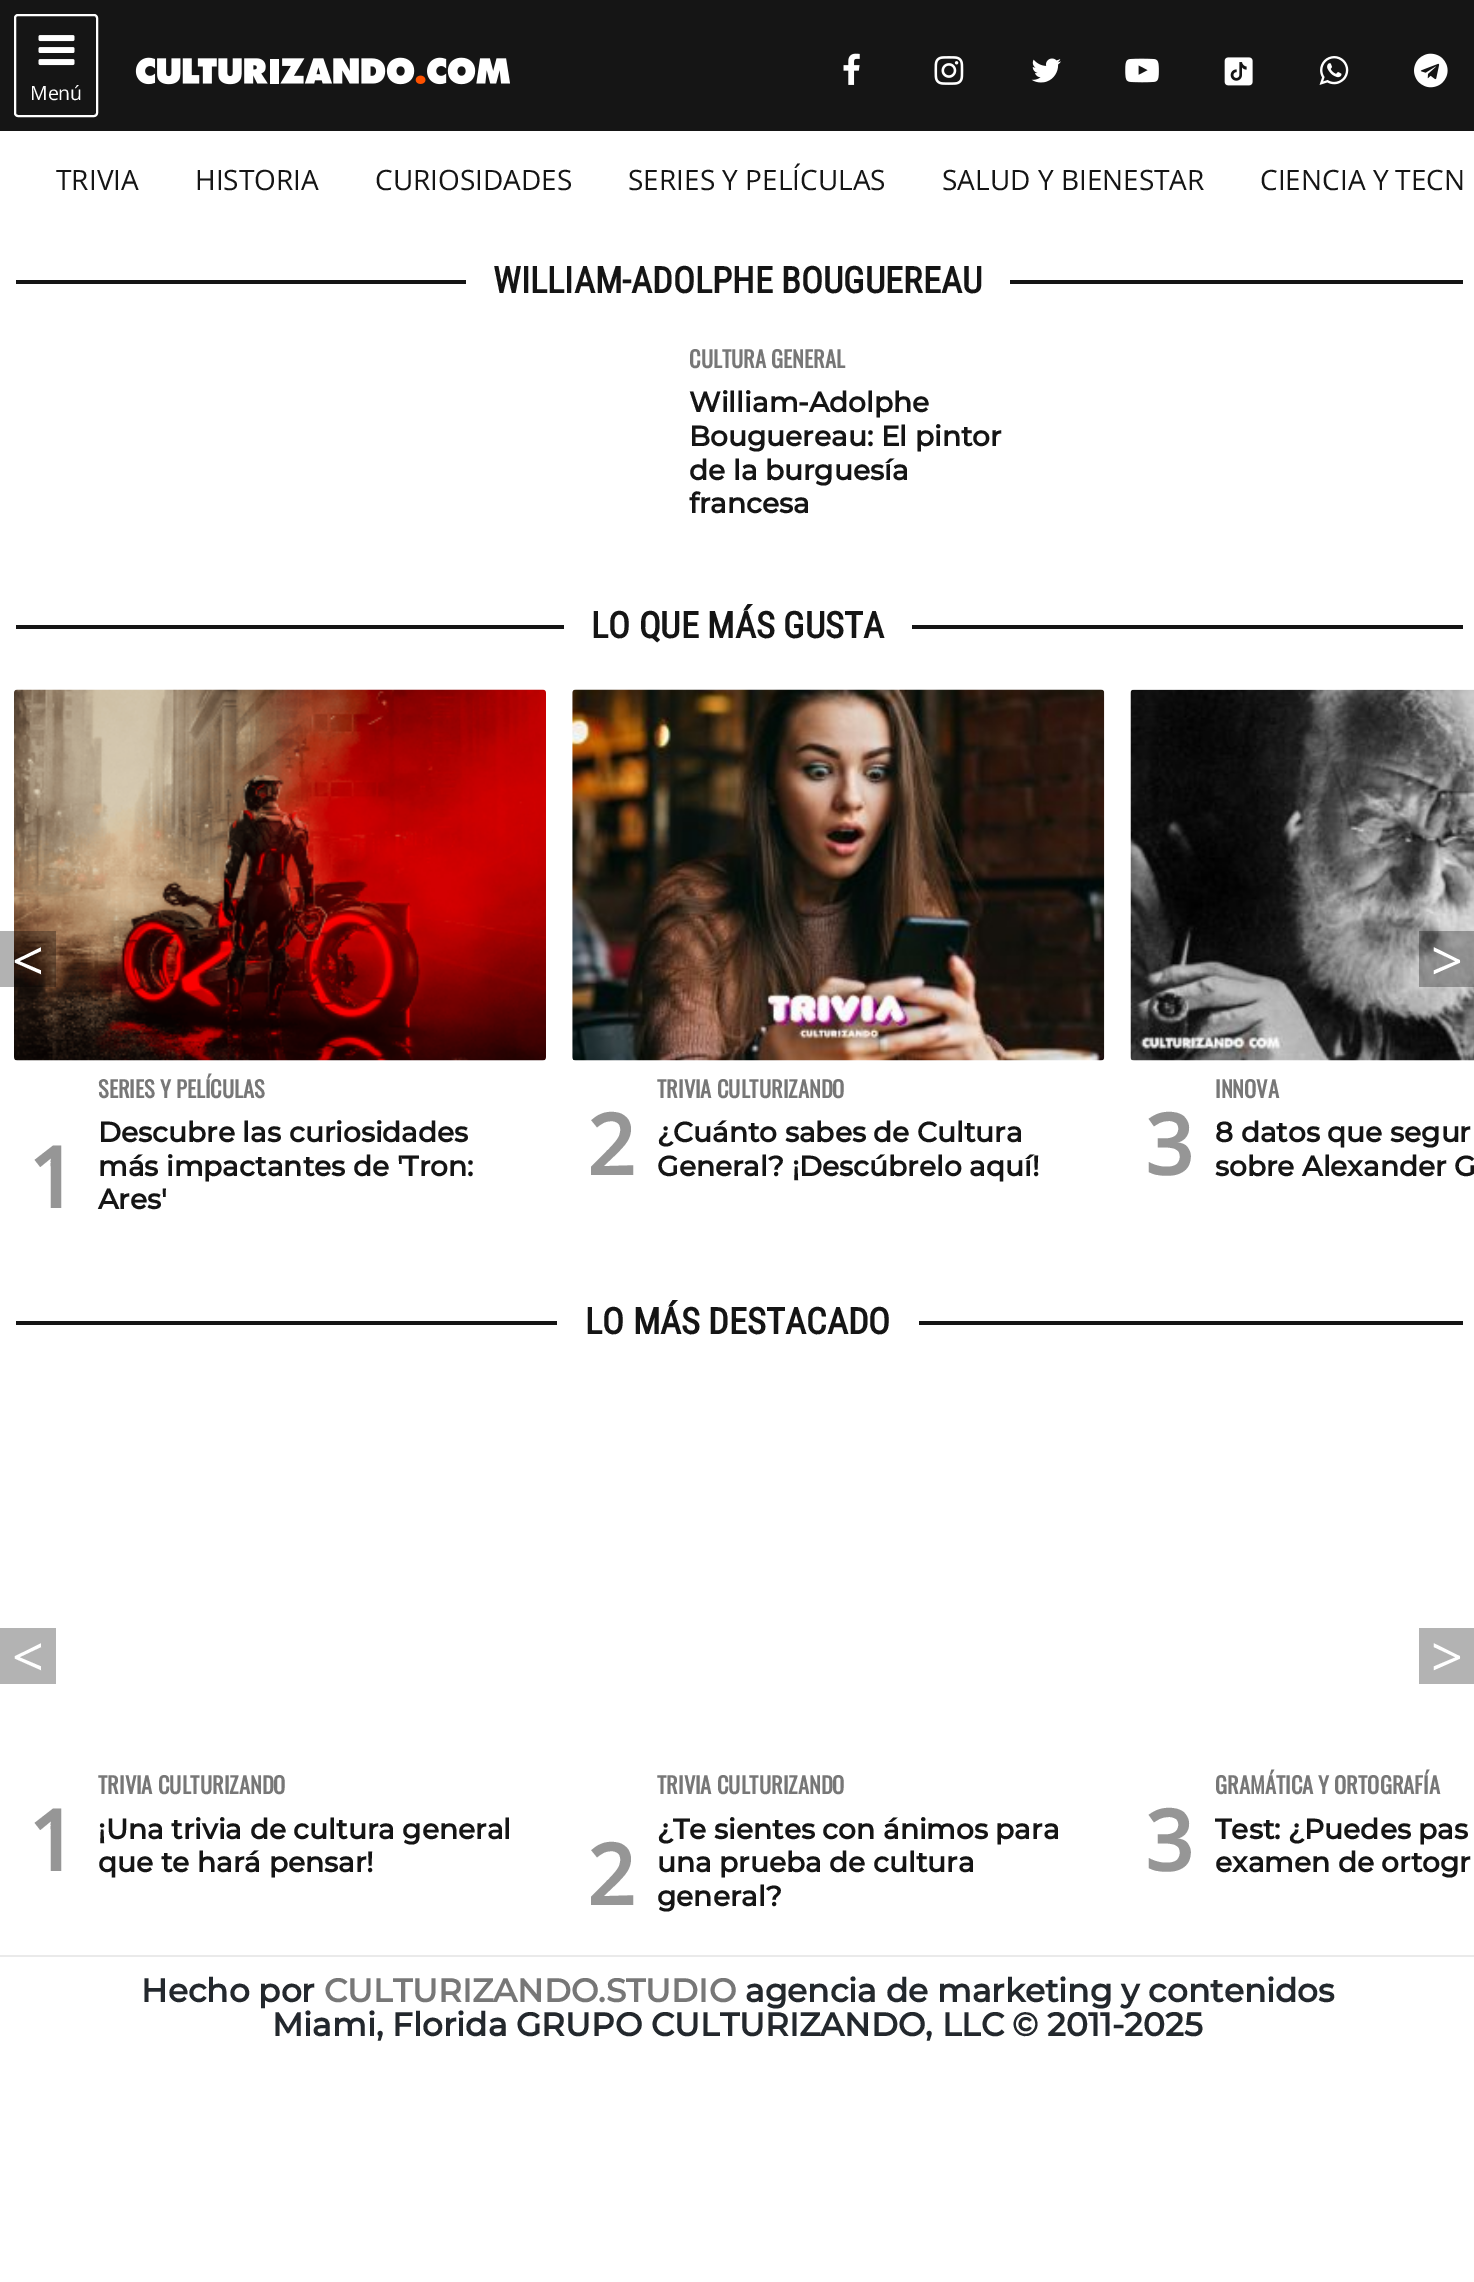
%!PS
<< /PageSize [1474 2282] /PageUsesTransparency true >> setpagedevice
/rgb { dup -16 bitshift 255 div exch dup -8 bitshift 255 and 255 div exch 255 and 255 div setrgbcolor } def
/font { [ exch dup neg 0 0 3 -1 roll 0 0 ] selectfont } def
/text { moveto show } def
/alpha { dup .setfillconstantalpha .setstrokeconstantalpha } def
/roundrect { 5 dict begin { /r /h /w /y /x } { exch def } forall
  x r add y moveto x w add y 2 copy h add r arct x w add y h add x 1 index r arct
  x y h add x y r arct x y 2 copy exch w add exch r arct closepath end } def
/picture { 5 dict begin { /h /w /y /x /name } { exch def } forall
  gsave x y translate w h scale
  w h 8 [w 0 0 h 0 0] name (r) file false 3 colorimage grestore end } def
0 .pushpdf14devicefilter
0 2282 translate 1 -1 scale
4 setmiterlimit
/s1 { /OpenSans-Regular 19.5 font 16#FFFFFF rgb } def
/s2 { /OpenSans-Regular 28 font 16#151515 rgb } def
/s3 { /RobotoCondensed-Bold 36.4 font 16#151515 rgb } def
/s4 { /Oswald-Bold 22.5 font 16#777777 rgb } def
/s5 { /Montserrat-Bold 28 font 16#151515 rgb } def
/s6 { /OpenSans-Regular 56 font 16#FFFFFF rgb } def
/s7 { /OpenSans-Bold 84 font 16#969696 rgb } def
/s8 { /Montserrat-Bold 32.75 font 16#23282D rgb } def
/s9 { /Montserrat-Bold 32.75 font 16#777777 rgb } def
16#FFFFFF rgb
0 0 1474 2282 rectfill
16#151515 rgb
0 0 1474 131 rectfill
(pic1.raw) 135 57 375 28 picture
(pic2.raw) 843 53 17 32 picture
(pic3.raw) 934 56 30 29 picture
(pic4.raw) 1031 58 30 25 picture
(pic5.raw) 1125 58 34 25 picture
(pic6.raw) 1224 57 29 29 picture
(pic7.raw) 1319 56 30 29 picture
(pic8.raw) 1414 53 34 35 picture
16#FFFFFF rgb
2 setlinewidth
15 15 82 101 3 roundrect stroke
(pic9.raw) 38 35 37 31 picture
s1
(Menú) 30 100 text
s2
(TRIVIA) 56 190 text
(HISTORIA) 195 190 text
(CURIOSIDADES) 375 190 text
(SERIES Y PELÍCULAS) 628 190 text
(SALUD Y BIENESTAR) 942 190 text
(CIENCIA Y TECN) 1260 190 text
16 280 1447 4 rectfill
16#FFFFFF rgb
466 280 544 4 rectfill
s3
(WILLIAM-ADOLPHE BOUGUEREAU) 493 293 text
s4
(CULTURA GENERAL) 689 368 text
s5
(William-Adolphe) 689 412 text
(Bouguereau: El pintor) 689 446 text
(de la burguesía) 689 480 text
(francesa) 689 513 text
16 625 1447 4 rectfill
16#FFFFFF rgb
564 625 348 4 rectfill
s3
(LO QUE MÁS GUSTA) 591 638 text
(pic10.raw) 14 689 532 372 picture
0.3 alpha
16#000000 rgb
0 931 56 56 rectfill
1 alpha
s6
(<) 12 981 text
(pic12.raw) 1130 689 344 372 picture
0.3 alpha
16#000000 rgb
1419 931 55 56 rectfill
1 alpha
s6
(>) 1431 981 text
s7
(1) 28 1208 text
s4
(SERIES Y PELÍCULAS) 98 1098 text
s5
(Descubre las curiosidades) 98 1142 text
(más impactantes de 'Tron:) 98 1176 text
(Ares') 98 1209 text
(pic11.raw) 572 689 533 372 picture
s7
(2) 587 1175 text
s4
(TRIVIA CULTURIZANDO) 657 1098 text
s5
(¿Cuánto sabes de Cultura) 657 1142 text
(General? ¡Descúbrelo aquí!) 657 1176 text
s7
(3) 1145 1175 text
s4
(INNOVA) 1215 1098 text
s5
(8 datos que segur) 1215 1142 text
(sobre Alexander G) 1215 1176 text
16 1321 1447 4 rectfill
16#FFFFFF rgb
557 1321 362 4 rectfill
s3
(LO MÁS DESTACADO) 585 1334 text
16#B3B3B3 rgb
0 1628 56 56 rectfill
s6
(<) 12 1677 text
16#B3B3B3 rgb
1419 1628 55 56 rectfill
s6
(>) 1431 1677 text
s7
(1) 28 1871 text
s4
(TRIVIA CULTURIZANDO) 98 1794 text
s5
(¡Una trivia de cultura general) 98 1839 text
(que te hará pensar!) 98 1872 text
s7
(2) 587 1905 text
s4
(TRIVIA CULTURIZANDO) 657 1794 text
s5
(¿Te sientes con ánimos para) 657 1839 text
(una prueba de cultura) 657 1872 text
(general?) 657 1906 text
s7
(3) 1145 1871 text
s4
(GRAMÁTICA Y ORTOGRAFÍA) 1215 1794 text
s5
(Test: ¿Puedes pas) 1215 1839 text
(examen de ortogr) 1215 1872 text
16#EAEAEA rgb
0 1955 1474 2 rectfill
s8
(Hecho por) 141 2002 text
s9
(CULTURIZANDO.STUDIO) 324 2002 text
s8
(agencia de marketing y contenidos) 745 2002 text
(Miami, Florida GRUPO CULTURIZANDO, LLC) 272 2036 text
(© 2011-2025) 1012 2036 text
.poppdf14devicefilter showpage
